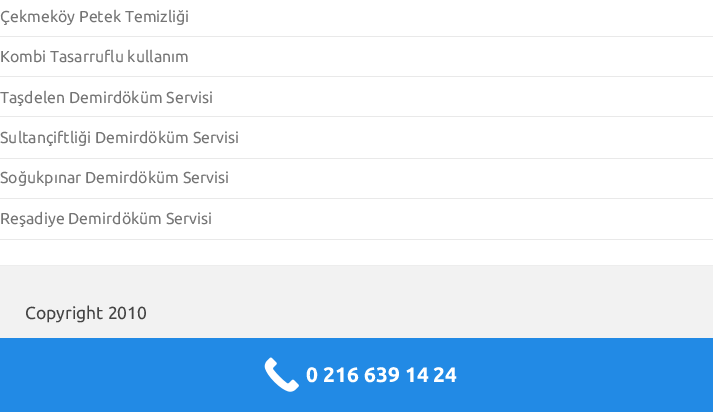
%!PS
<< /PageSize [713 412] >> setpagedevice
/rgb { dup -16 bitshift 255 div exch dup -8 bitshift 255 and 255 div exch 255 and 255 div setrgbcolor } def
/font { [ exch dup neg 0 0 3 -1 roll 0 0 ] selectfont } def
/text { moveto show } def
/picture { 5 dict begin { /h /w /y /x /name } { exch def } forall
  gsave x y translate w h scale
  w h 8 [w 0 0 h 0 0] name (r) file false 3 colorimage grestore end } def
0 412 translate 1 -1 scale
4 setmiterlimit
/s1 { /Ubuntu-Regular 15.9 font 16#757575 rgb } def
/s2 { /Ubuntu-Regular 17.5 font 16#444444 rgb } def
/s3 { /Ubuntu-Bold 21 font 16#FFFFFF rgb } def
16#FFFFFF rgb
0 0 713 412 rectfill
16#E9E9E9 rgb
0 36 713 1 rectfill
s1
(Çekmeköy Petek Temizliği) 0 22 text
16#E9E9E9 rgb
0 76 713 1 rectfill
s1
(Kombi Tasarruflu kullanım) 0 62 text
16#E9E9E9 rgb
0 116 713 1 rectfill
s1
(Taşdelen Demirdöküm Servisi) 0 103 text
16#E9E9E9 rgb
0 158 713 1 rectfill
s1
(Sultançiftliği Demirdöküm Servisi) 0 143 text
16#E9E9E9 rgb
0 198 713 1 rectfill
s1
(Soğukpınar Demirdöküm Servisi) 0 183 text
16#E9E9E9 rgb
0 239 713 1 rectfill
s1
(Reşadiye Demirdöküm Servisi) 0 224 text
16#F2F2F2 rgb
0 266 713 72 rectfill
16#EDEDED rgb
0 265 713 1 rectfill
s2
(Copyright 2010) 25 319 text
16#228AE5 rgb
0 338 713 74 rectfill
(pic1.raw) 264 357 35 35 picture
s3
(0 216 639 14 24) 306 382 text
showpage
